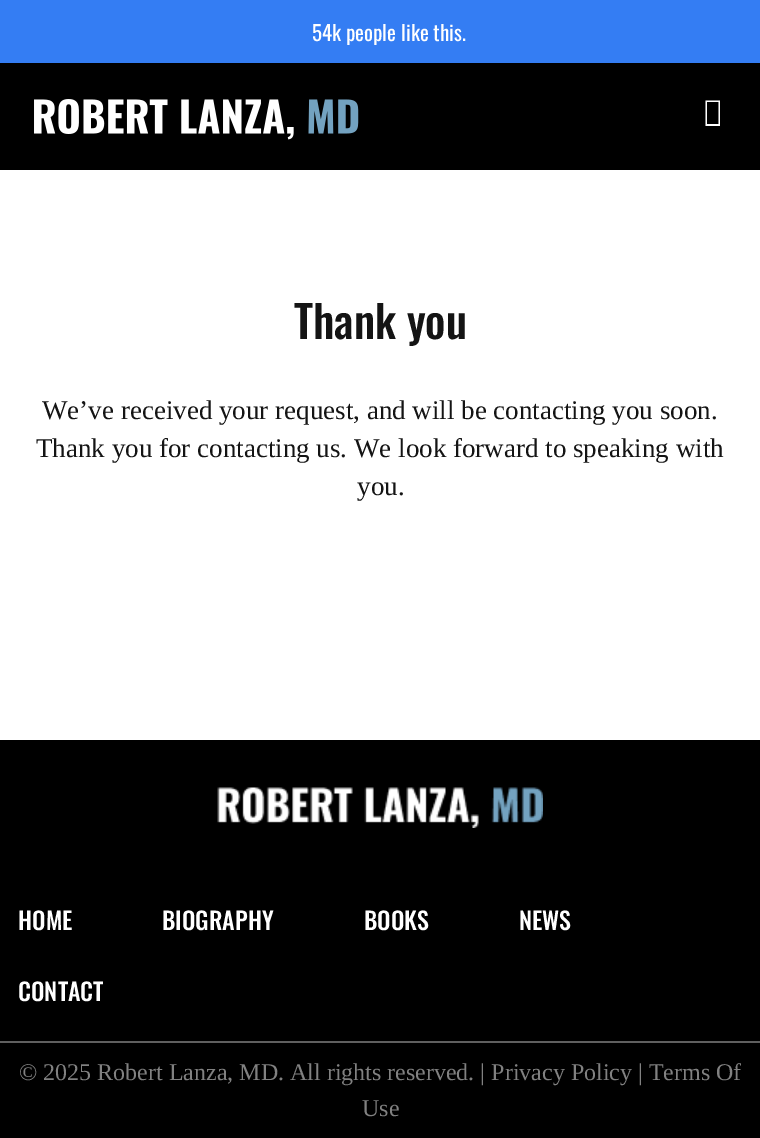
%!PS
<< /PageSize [760 1138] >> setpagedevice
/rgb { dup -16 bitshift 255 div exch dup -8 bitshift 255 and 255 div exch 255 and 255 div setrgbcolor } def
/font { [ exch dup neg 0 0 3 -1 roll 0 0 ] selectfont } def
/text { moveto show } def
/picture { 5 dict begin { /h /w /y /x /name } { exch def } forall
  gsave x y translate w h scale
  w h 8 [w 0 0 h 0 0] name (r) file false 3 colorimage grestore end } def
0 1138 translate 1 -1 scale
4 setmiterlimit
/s1 { /Oswald-Regular 21 font 16#FFFFFF rgb } def
/s2 { /Oswald-Medium 44.5 font 16#141414 rgb } def
/s3 { /Tinos-Regular 27 font 16#141414 rgb } def
/s4 { /Oswald-Medium 24 font 16#FFFFFF rgb } def
/s5 { /Tinos-Regular 24 font 16#818181 rgb } def
16#FFFFFF rgb
0 0 760 1138 rectfill
16#000000 rgb
0 63 760 107 rectfill
16#347DF3 rgb
0 0 760 63 rectfill
s1
(54k people like this.) 312 41 text
(pic1.raw) 34 99 325 41 picture
705.5 126 moveto 705.5 100.5 lineto 720 100.5 lineto 720 126 lineto closepath 707 124 moveto 718.5 124 lineto 718.5 102 lineto 707 102 lineto closepath fill
s2
(Thank you) 294 339 text
s3
(We’ve received your request, and will be contacting you soon.) 42 419 text
(Thank you for contacting us. We look forward to speaking with) 36 457 text
(you.) 357 495 text
16#000000 rgb
0 740 760 301 rectfill
(pic2.raw) 217 787 326 41 picture
s4
(HOME) 18 930 text
(BIOGRAPHY) 162 930 text
(BOOKS) 364 930 text
(NEWS) 519 930 text
(CONTACT) 18 1001 text
16#000000 rgb
0 1043 760 95 rectfill
16#5F5F5F rgb
0 1041 760 2 rectfill
s5
(© 2025 Robert Lanza, MD. All rights reserved. | Privacy Policy | Terms Of) 19 1080 text
(Use) 362 1116 text
showpage
